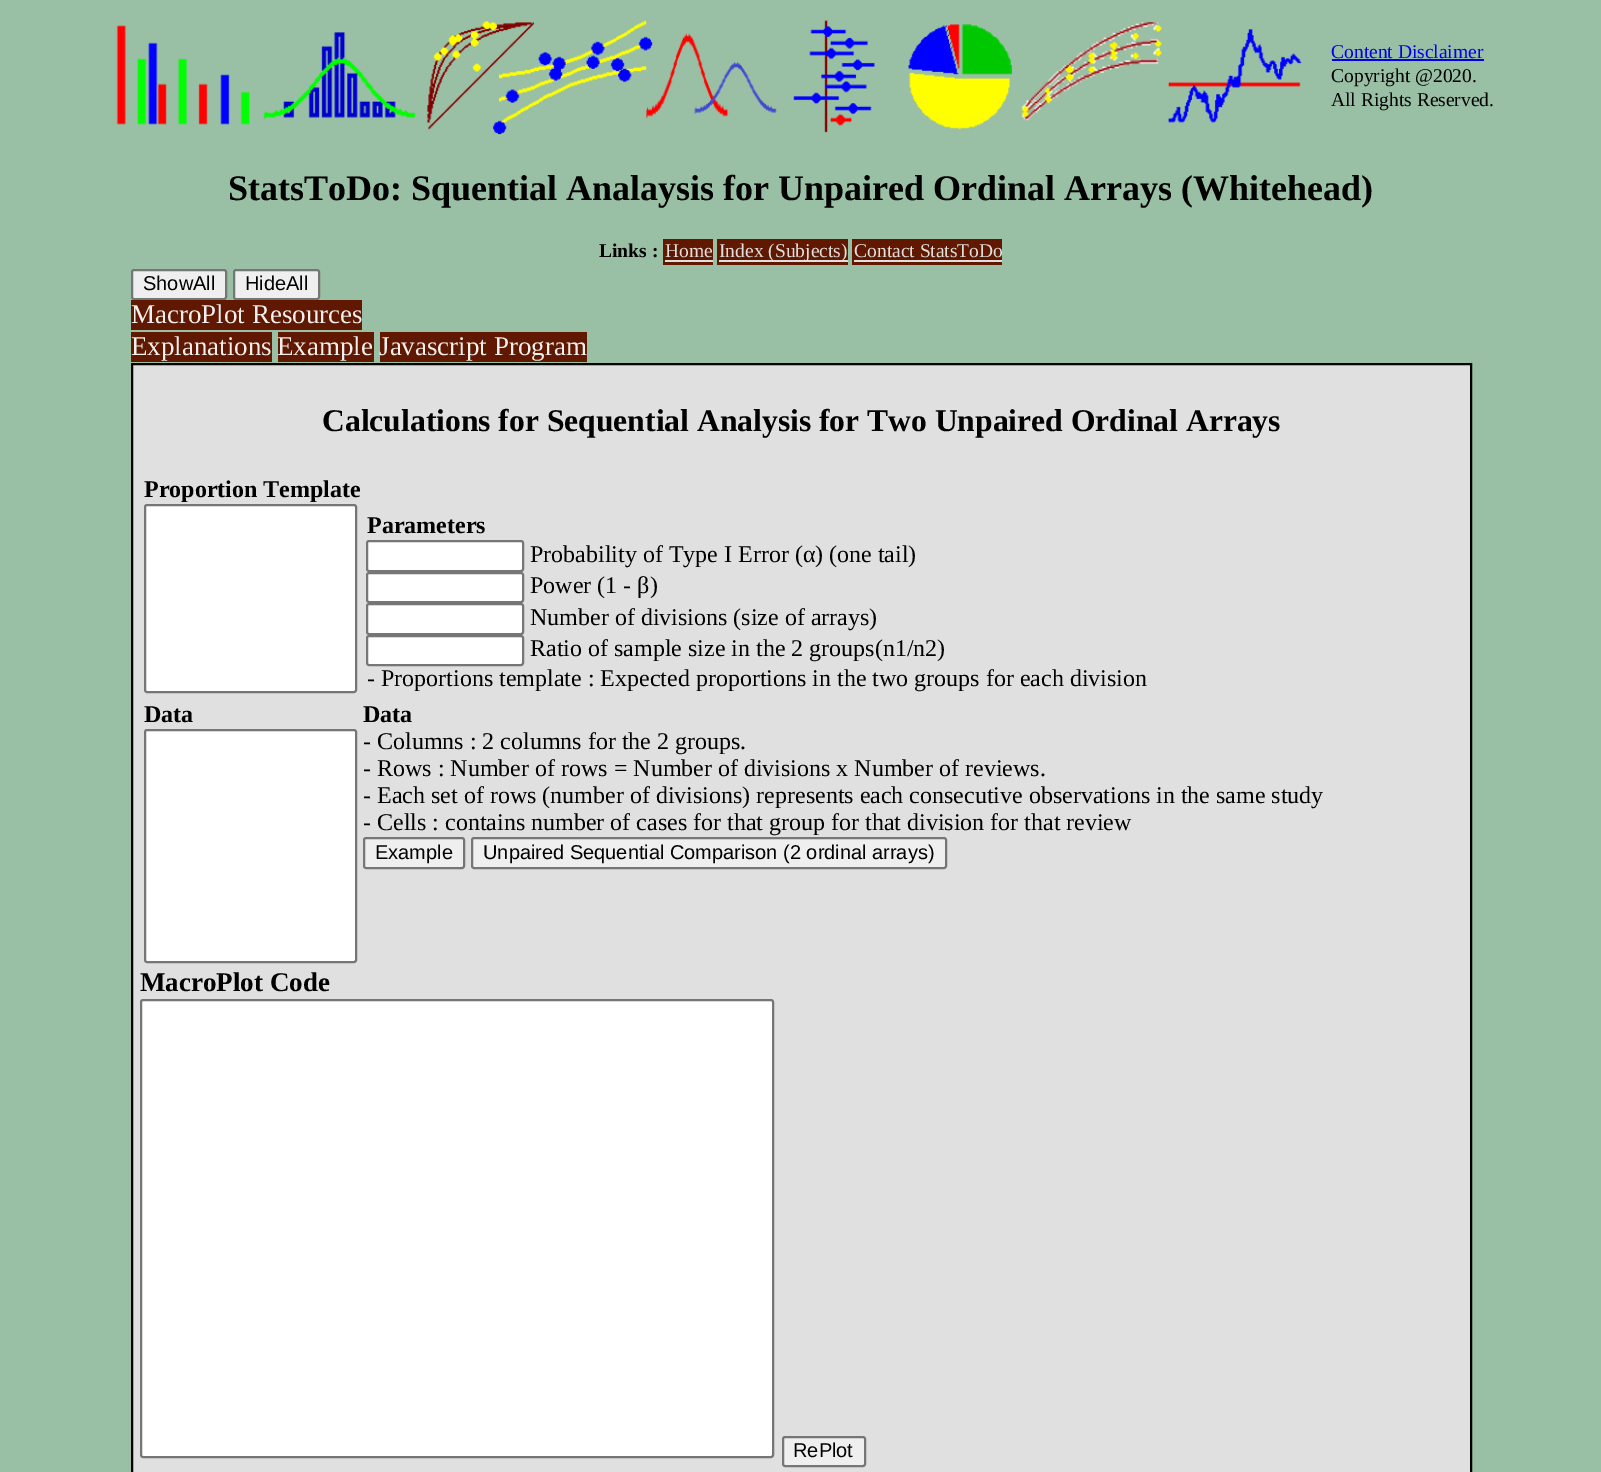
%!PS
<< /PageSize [1601 1472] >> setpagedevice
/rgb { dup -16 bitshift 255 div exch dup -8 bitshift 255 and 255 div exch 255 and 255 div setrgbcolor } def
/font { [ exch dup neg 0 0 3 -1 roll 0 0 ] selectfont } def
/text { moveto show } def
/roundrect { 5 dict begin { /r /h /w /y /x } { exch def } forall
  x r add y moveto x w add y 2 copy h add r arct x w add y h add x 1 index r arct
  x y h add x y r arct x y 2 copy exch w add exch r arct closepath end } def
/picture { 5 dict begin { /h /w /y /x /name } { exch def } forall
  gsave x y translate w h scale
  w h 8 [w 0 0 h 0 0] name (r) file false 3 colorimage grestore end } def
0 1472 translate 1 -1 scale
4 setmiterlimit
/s1 { /LiberationSerif-Regular 19.5 font 16#0000EE rgb } def
/s2 { /LiberationSerif-Regular 19.5 font 16#000000 rgb } def
/s3 { /LiberationSerif-Bold 36 font 16#000000 rgb } def
/s4 { /LiberationSerif-Bold 19.5 font 16#000000 rgb } def
/s5 { /LiberationSerif-Regular 19.5 font 16#E0E0E0 rgb } def
/s6 { /LiberationSans-Regular 20 font 16#000000 rgb } def
/s7 { /LiberationSerif-Regular 27 font 16#F0F0F0 rgb } def
/s8 { /LiberationSerif-Bold 31.6 font 16#000000 rgb } def
/s9 { /LiberationSerif-Bold 24 font 16#000000 rgb } def
/s10 { /LiberationSerif-Regular 24 font 16#000000 rgb } def
/s11 { /LiberationSerif-Bold 27 font 16#000000 rgb } def
16#99BFA4 rgb
0 0 1601 1472 rectfill
(pic1.raw) 116 20 1186 115 picture
s1
(Content Disclaimer) 1331 58 text
1332 59 152 2 rectfill
s2
(Copyright @2020.) 1331 82 text
(All Rights Reserved.) 1331 106 text
s3
(StatsToDo: Squential Analaysis for Unpaired Ordinal Arrays \(Whitehead\)) 228 200 text
s4
(Links :) 599 257 text
16#611800 rgb
663 239 50 26 rectfill
s5
(Home) 665 257 text
665 260 48 2 rectfill
16#611800 rgb
717 239 131 26 rectfill
16#E0E0E0 rgb
719 260 129 2 rectfill
(Index \(Subjects\)) 719 257 text
16#611800 rgb
852 239 150 26 rectfill
s5
(Contact StatsToDo) 854 257 text
854 260 148 2 rectfill
16#EFEFEF rgb
132 270 94 29 2 roundrect gsave fill grestore
16#767676 rgb
2 setlinewidth
stroke
s6
(ShowAll) 143 290 text
16#EFEFEF rgb
234 270 85 29 2 roundrect gsave fill grestore
16#767676 rgb
stroke
s6
(HideAll) 245 290 text
16#611800 rgb
131 300 231 30 rectfill
s7
(MacroPlot Resources) 131 323 text
16#611800 rgb
131 332 141 30 rectfill
s7
(Explanations) 131 355 text
16#611800 rgb
278 332 96 30 rectfill
s7
(Example) 277 355 text
16#611800 rgb
380 332 207 30 rectfill
s7
(Javascript Program) 379 355 text
16#E0E0E0 rgb
132 364 moveto 1471 364 lineto 1471 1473 lineto 132 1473 lineto closepath gsave fill grestore
16#000000 rgb
stroke
s8
(Calculations for Sequential Analysis for Two Unpaired Ordinal Arrays) 322 431 text
s9
(Proportion Template) 144 497 text
16#FFFFFF rgb
145 505 211 187 2 roundrect gsave fill grestore
16#767676 rgb
stroke
s9
(Parameters) 367 533 text
16#FFFFFF rgb
367 541 156 30 2 roundrect gsave fill grestore
16#767676 rgb
stroke
s10
(Probability of Type I Error \(α\) \(one tail\)) 530 562 text
16#FFFFFF rgb
367 573 156 29 2 roundrect gsave fill grestore
16#767676 rgb
stroke
s10
(Power \(1 - β\)) 530 593 text
16#FFFFFF rgb
367 604 156 30 2 roundrect gsave fill grestore
16#767676 rgb
stroke
s10
(Number of divisions \(size of arrays\)) 530 625 text
16#FFFFFF rgb
367 636 156 29 2 roundrect gsave fill grestore
16#767676 rgb
stroke
s10
(Ratio of sample size in the 2 groups\(n1/n2\)) 530 656 text
(- Proportions template : Expected proportions in the two groups for each division) 367 686 text
s9
(Data) 144 722 text
16#FFFFFF rgb
145 730 211 232 2 roundrect gsave fill grestore
16#767676 rgb
stroke
s9
(Data) 363 722 text
s10
(- Columns : 2 columns for the 2 groups.) 363 749 text
(- Rows : Number of rows = Number of divisions x Number of reviews.) 363 776 text
(- Each set of rows \(number of divisions\) represents each consecutive observations in the same study) 363 803 text
(- Cells : contains number of cases for that group for that division for that review) 363 830 text
16#EFEFEF rgb
364 838 100 30 2 roundrect gsave fill grestore
16#767676 rgb
stroke
s6
(Example) 375 859 text
16#EFEFEF rgb
472 838 474 30 2 roundrect gsave fill grestore
16#767676 rgb
stroke
s6
(Unpaired Sequential Comparison \(2 ordinal arrays\)) 483 859 text
s11
(MacroPlot Code) 140 991 text
16#FFFFFF rgb
141 1000 632 457 2 roundrect gsave fill grestore
16#767676 rgb
stroke
16#EFEFEF rgb
783 1437 82 29 2 roundrect gsave fill grestore
16#767676 rgb
stroke
s6
(RePlot) 793 1457 text
showpage
